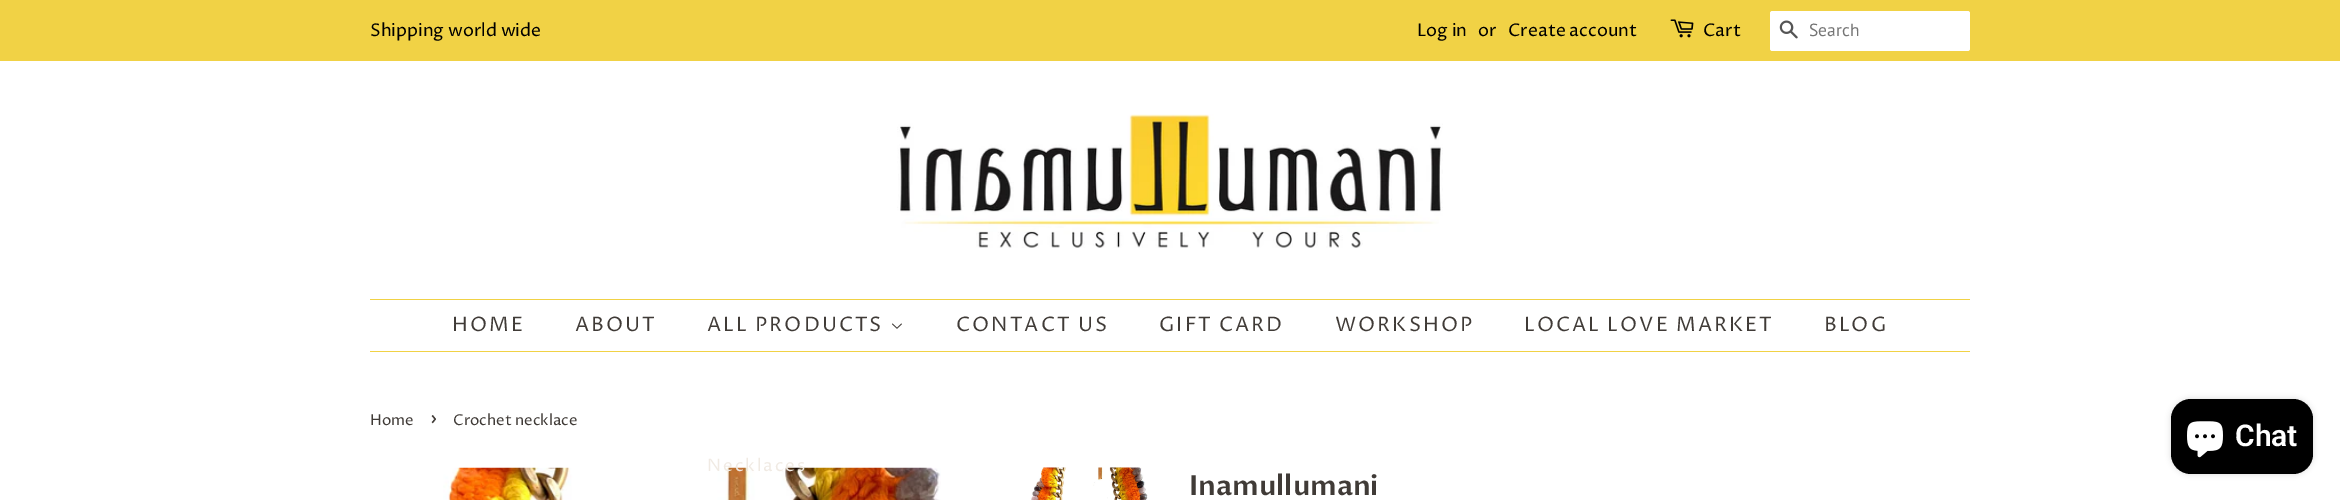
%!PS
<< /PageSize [2340 500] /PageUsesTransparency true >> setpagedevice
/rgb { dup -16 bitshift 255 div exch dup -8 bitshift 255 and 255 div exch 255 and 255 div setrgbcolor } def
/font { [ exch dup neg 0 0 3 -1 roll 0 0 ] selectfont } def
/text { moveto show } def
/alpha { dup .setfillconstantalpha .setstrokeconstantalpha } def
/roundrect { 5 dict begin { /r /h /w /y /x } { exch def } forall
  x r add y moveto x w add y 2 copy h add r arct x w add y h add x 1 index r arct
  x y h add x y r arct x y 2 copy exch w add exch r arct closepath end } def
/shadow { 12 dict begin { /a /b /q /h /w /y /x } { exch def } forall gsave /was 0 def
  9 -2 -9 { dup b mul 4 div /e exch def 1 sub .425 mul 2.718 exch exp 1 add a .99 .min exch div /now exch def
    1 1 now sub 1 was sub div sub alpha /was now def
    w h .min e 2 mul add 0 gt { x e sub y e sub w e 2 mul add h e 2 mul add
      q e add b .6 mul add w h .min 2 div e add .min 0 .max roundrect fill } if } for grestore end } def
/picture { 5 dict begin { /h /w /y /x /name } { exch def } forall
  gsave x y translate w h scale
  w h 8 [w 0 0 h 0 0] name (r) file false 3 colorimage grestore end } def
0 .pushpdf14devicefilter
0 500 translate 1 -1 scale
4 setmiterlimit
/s1 { /ProzaLibre-Regular 17.5 font 16#000000 rgb } def
/s2 { /PTSans-Regular 17.5 font 16#757575 rgb } def
/s3 { /ProzaLibre-Regular 15 font 16#403B37 rgb } def
/s4 { /ProzaLibre-Regular 21 font 16#403B37 rgb } def
/s5 { /ProzaLibre-SemiBold 27.5 font 16#403B37 rgb } def
/s6 { /Roboto-SemiBold 30 font 16#FFFFFF rgb } def
16#FFFFFF rgb
0 0 2340 500 rectfill
16#F1D245 rgb
0 0 2340 61 rectfill
s1
(Shipping world wide) 370 36 text
(Log in) 1417 36 text
(or) 1478 36 text
(Create account) 1508 36 text
(pic1.raw) 1670 19 24 19 picture
(Cart) 1703 36 text
16#FFFFFF rgb
1770 11 200 40 2.5 roundrect fill
(pic2.raw) 1779 20 19 19 picture
s2
(Search) 1809 36 text
(pic3.raw) 897 114 546 134 picture
16#F1D245 rgb
370 299 1600 1 rectfill
370 351 1600 1 rectfill
/ProzaLibre-Regular 20 font
16#403B37 rgb
452 331 moveto 2 0 (HOME) ashow
575 331 moveto 2 0 (ABOUT) ashow
707 331 moveto 2 0 (ALL PRODUCTS) ashow
(pic4.raw) 892 323 10 6 picture
(pic5.raw) 443 467 498 33 picture
/ProzaLibre-Regular 17 font
16#F0EAE3 rgb
707 471 moveto 2 0 (Necklaces) ashow
/ProzaLibre-Regular 20 font
16#403B37 rgb
956 331 moveto 2 0 (CONTACT US) ashow
1159 331 moveto 2 0 (GIFT CARD) ashow
1335 331 moveto 2 0 (WORKSHOP) ashow
1524 331 moveto 2 0 (LOCAL LOVE MARKET) ashow
1824 331 moveto 2 0 (BLOG) ashow
s3
(Home) 370 425 text
s4
(›) 430 425 text
s3
(Crochet necklace) 453 425 text
(pic6.raw) 1030 467 118 33 picture
s5
(Inamullumani) 1189 495 text
16#000000 rgb
2171 399 142 75 20 3 0.15 shadow
2171 399 142 75 20 roundrect fill
(pic7.raw) 2187 421 36 37 picture
s6
(Chat) 2235 446 text
.poppdf14devicefilter showpage
